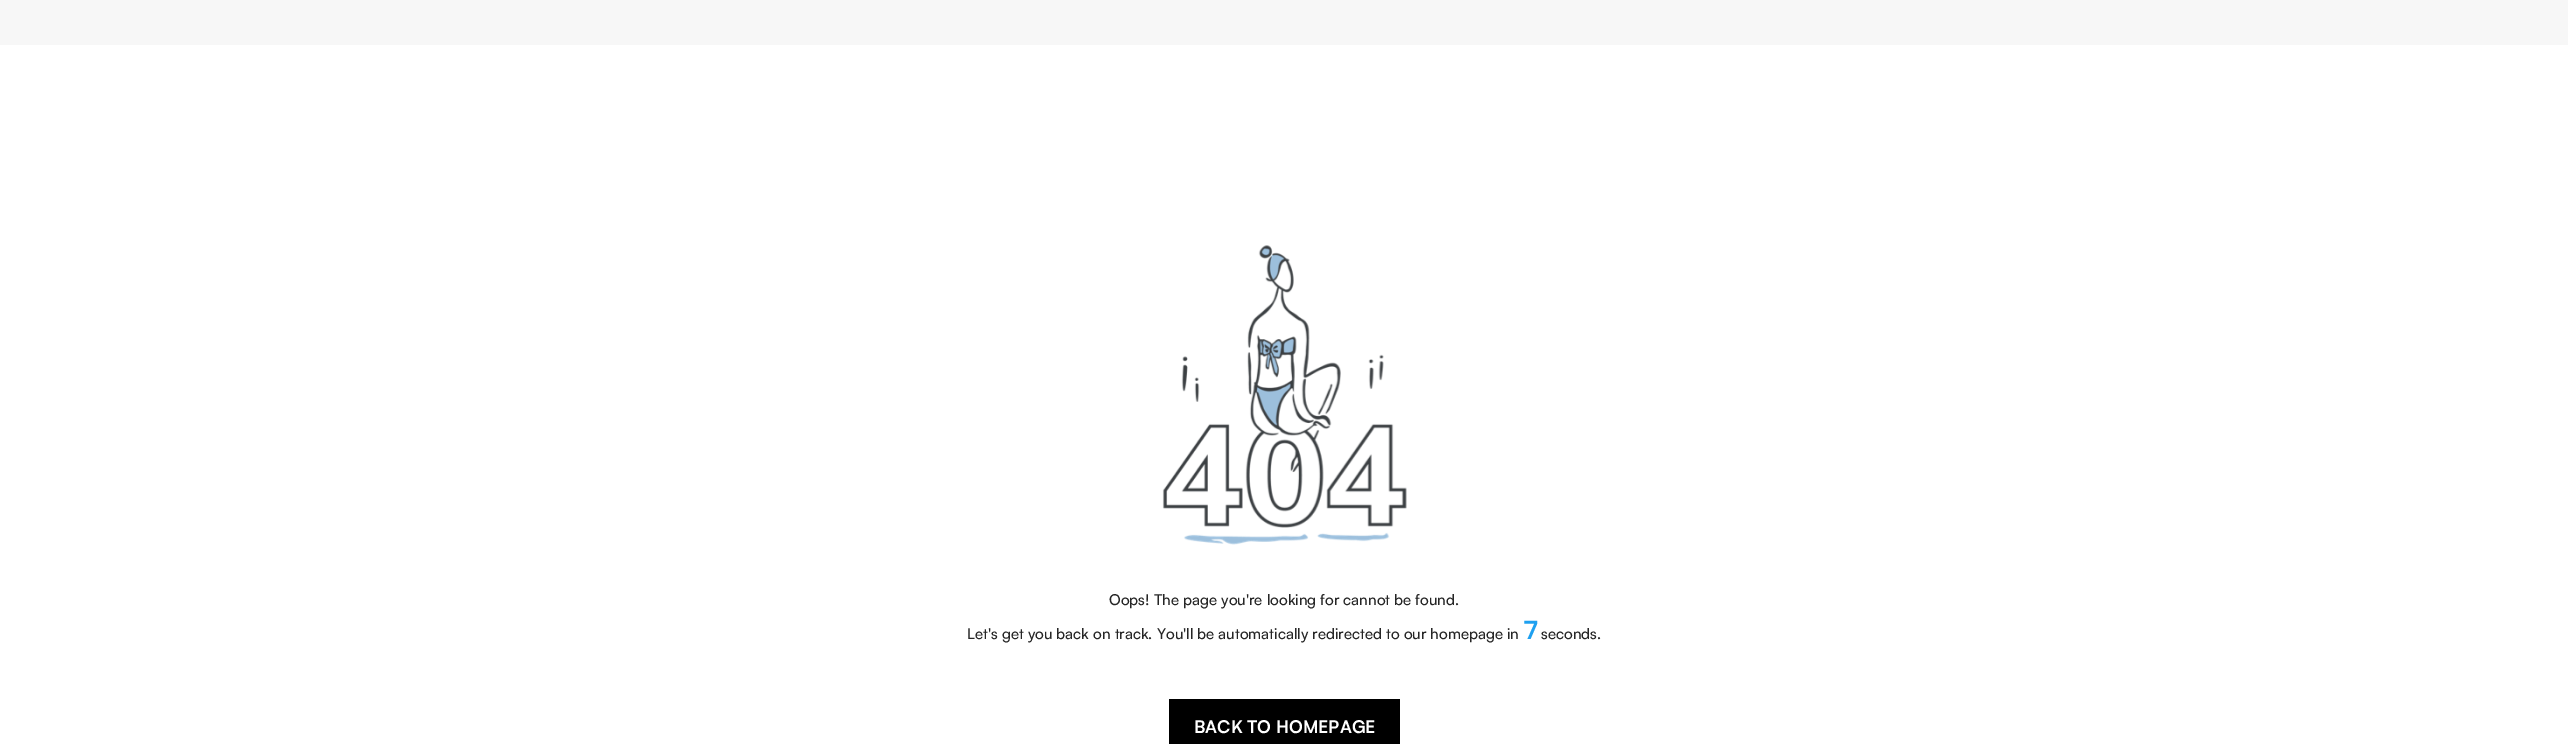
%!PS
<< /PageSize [2568 744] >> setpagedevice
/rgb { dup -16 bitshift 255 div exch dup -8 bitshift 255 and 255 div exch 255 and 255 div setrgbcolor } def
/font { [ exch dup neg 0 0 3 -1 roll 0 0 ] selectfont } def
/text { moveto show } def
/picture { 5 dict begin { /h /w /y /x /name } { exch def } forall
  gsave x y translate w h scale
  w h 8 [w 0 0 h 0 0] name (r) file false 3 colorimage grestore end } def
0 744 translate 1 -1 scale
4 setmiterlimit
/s1 { /Satoshi-Medium 15 font 16#262626 rgb } def
/s2 { /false-Bold 25 font 16#1EA0F0 rgb } def
/s3 { /false-Bold 17.5 font 16#FFFFFF rgb } def
16#FFFFFF rgb
0 0 2568 744 rectfill
16#F7F7F7 rgb
0 0 2568 45 rectfill
(pic1.raw) 1162 245 245 300 picture
s1
(Oops! The page you're looking for cannot be found.) 1109 605 text
(Let's get you back on track. You'll be automatically redirected to our homepage in) 967 639 text
s2
(7) 1524 639 text
s1
(seconds.) 1541 639 text
16#000000 rgb
1169 699 231 45 rectfill
s3
(BACK TO HOMEPAGE) 1194 733 text
showpage
